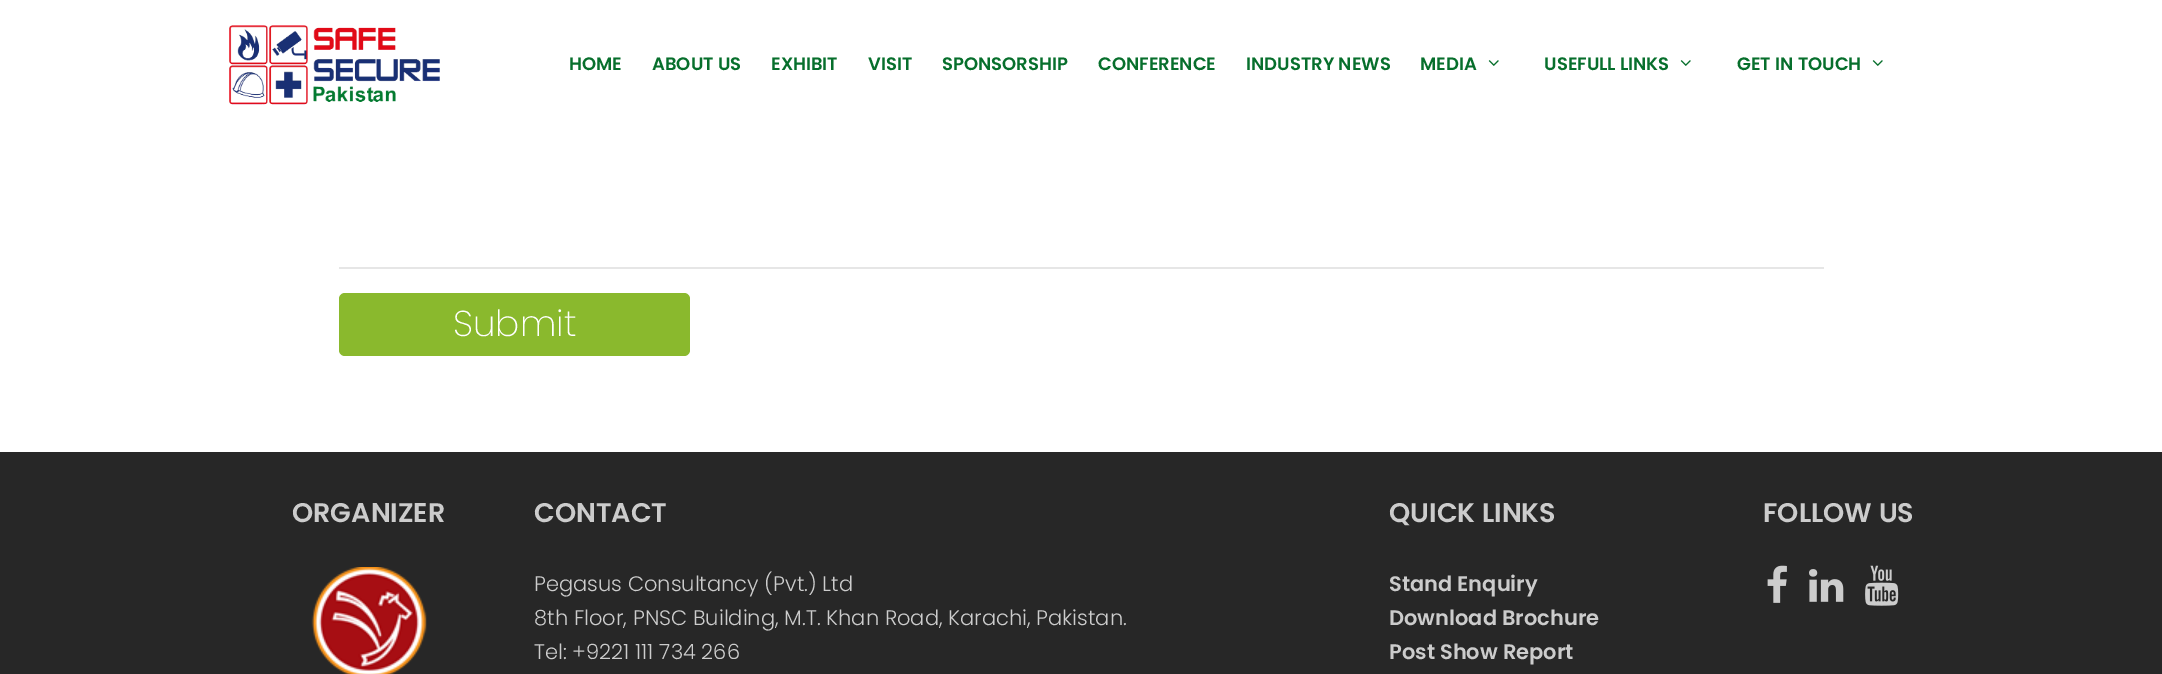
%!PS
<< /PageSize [2162 674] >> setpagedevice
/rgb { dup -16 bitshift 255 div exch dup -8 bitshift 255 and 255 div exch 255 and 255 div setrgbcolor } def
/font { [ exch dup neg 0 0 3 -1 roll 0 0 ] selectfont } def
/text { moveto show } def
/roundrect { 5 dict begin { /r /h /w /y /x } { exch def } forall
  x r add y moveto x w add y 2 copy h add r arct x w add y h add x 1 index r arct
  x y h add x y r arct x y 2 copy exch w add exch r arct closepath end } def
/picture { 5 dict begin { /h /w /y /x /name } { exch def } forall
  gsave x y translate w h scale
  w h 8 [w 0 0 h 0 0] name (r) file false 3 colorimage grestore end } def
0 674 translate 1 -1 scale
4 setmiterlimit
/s1 { /Poppins-SemiBold 18 font 16#076F2C rgb } def
/s2 { /Poppins-ExtraLight 36 font 16#FFFFFF rgb } def
/s3 { /Poppins-SemiBold 27 font 16#CCCCCC rgb } def
/s4 { /Poppins-Light 21 font 16#CCCCCC rgb } def
/s5 { /Poppins-SemiBold 21 font 16#CCCCCC rgb } def
16#FFFFFF rgb
0 0 2162 674 rectfill
(pic1.raw) 229 25 211 80 picture
s1
(HOME) 569 70 text
(ABOUT US) 652 70 text
(EXHIBIT) 771 70 text
(VISIT) 868 70 text
(SPONSORSHIP) 942 70 text
(CONFERENCE) 1098 70 text
(INDUSTRY NEWS) 1246 70 text
(MEDIA) 1420 70 text
(pic2.raw) 1488 60 11 6 picture
(USEFULL LINKS) 1544 70 text
(pic2.raw) 1680 60 11 6 picture
(GET IN TOUCH) 1737 70 text
(pic2.raw) 1872 60 11 6 picture
16#E6E6E6 rgb
339 267 1485 2 rectfill
16#8AB92D rgb
339 293 351 63 6 roundrect fill
s2
(Submit) 453 336 text
16#272727 rgb
0 452 2162 222 rectfill
s3
(ORGANIZER) 292 522 text
(pic3.raw) 311 567 116 107 picture
(CONTACT) 534 522 text
s4
(Pegasus Consultancy \(Pvt.\) Ltd) 534 591 text
(8th Floor, PNSC Building, M.T. Khan Road, Karachi, Pakistan.) 534 625 text
(Tel: +9221 111 734 266) 534 659 text
s3
(QUICK LINKS) 1389 522 text
s5
(Stand Enquiry) 1389 591 text
(Download Brochure) 1389 625 text
(Post Show Report) 1389 659 text
s3
(FOLLOW US) 1763 522 text
(pic4.raw) 1767 565 20 38 picture
(pic5.raw) 1809 569 35 33 picture
(pic6.raw) 1865 565 34 41 picture
showpage
